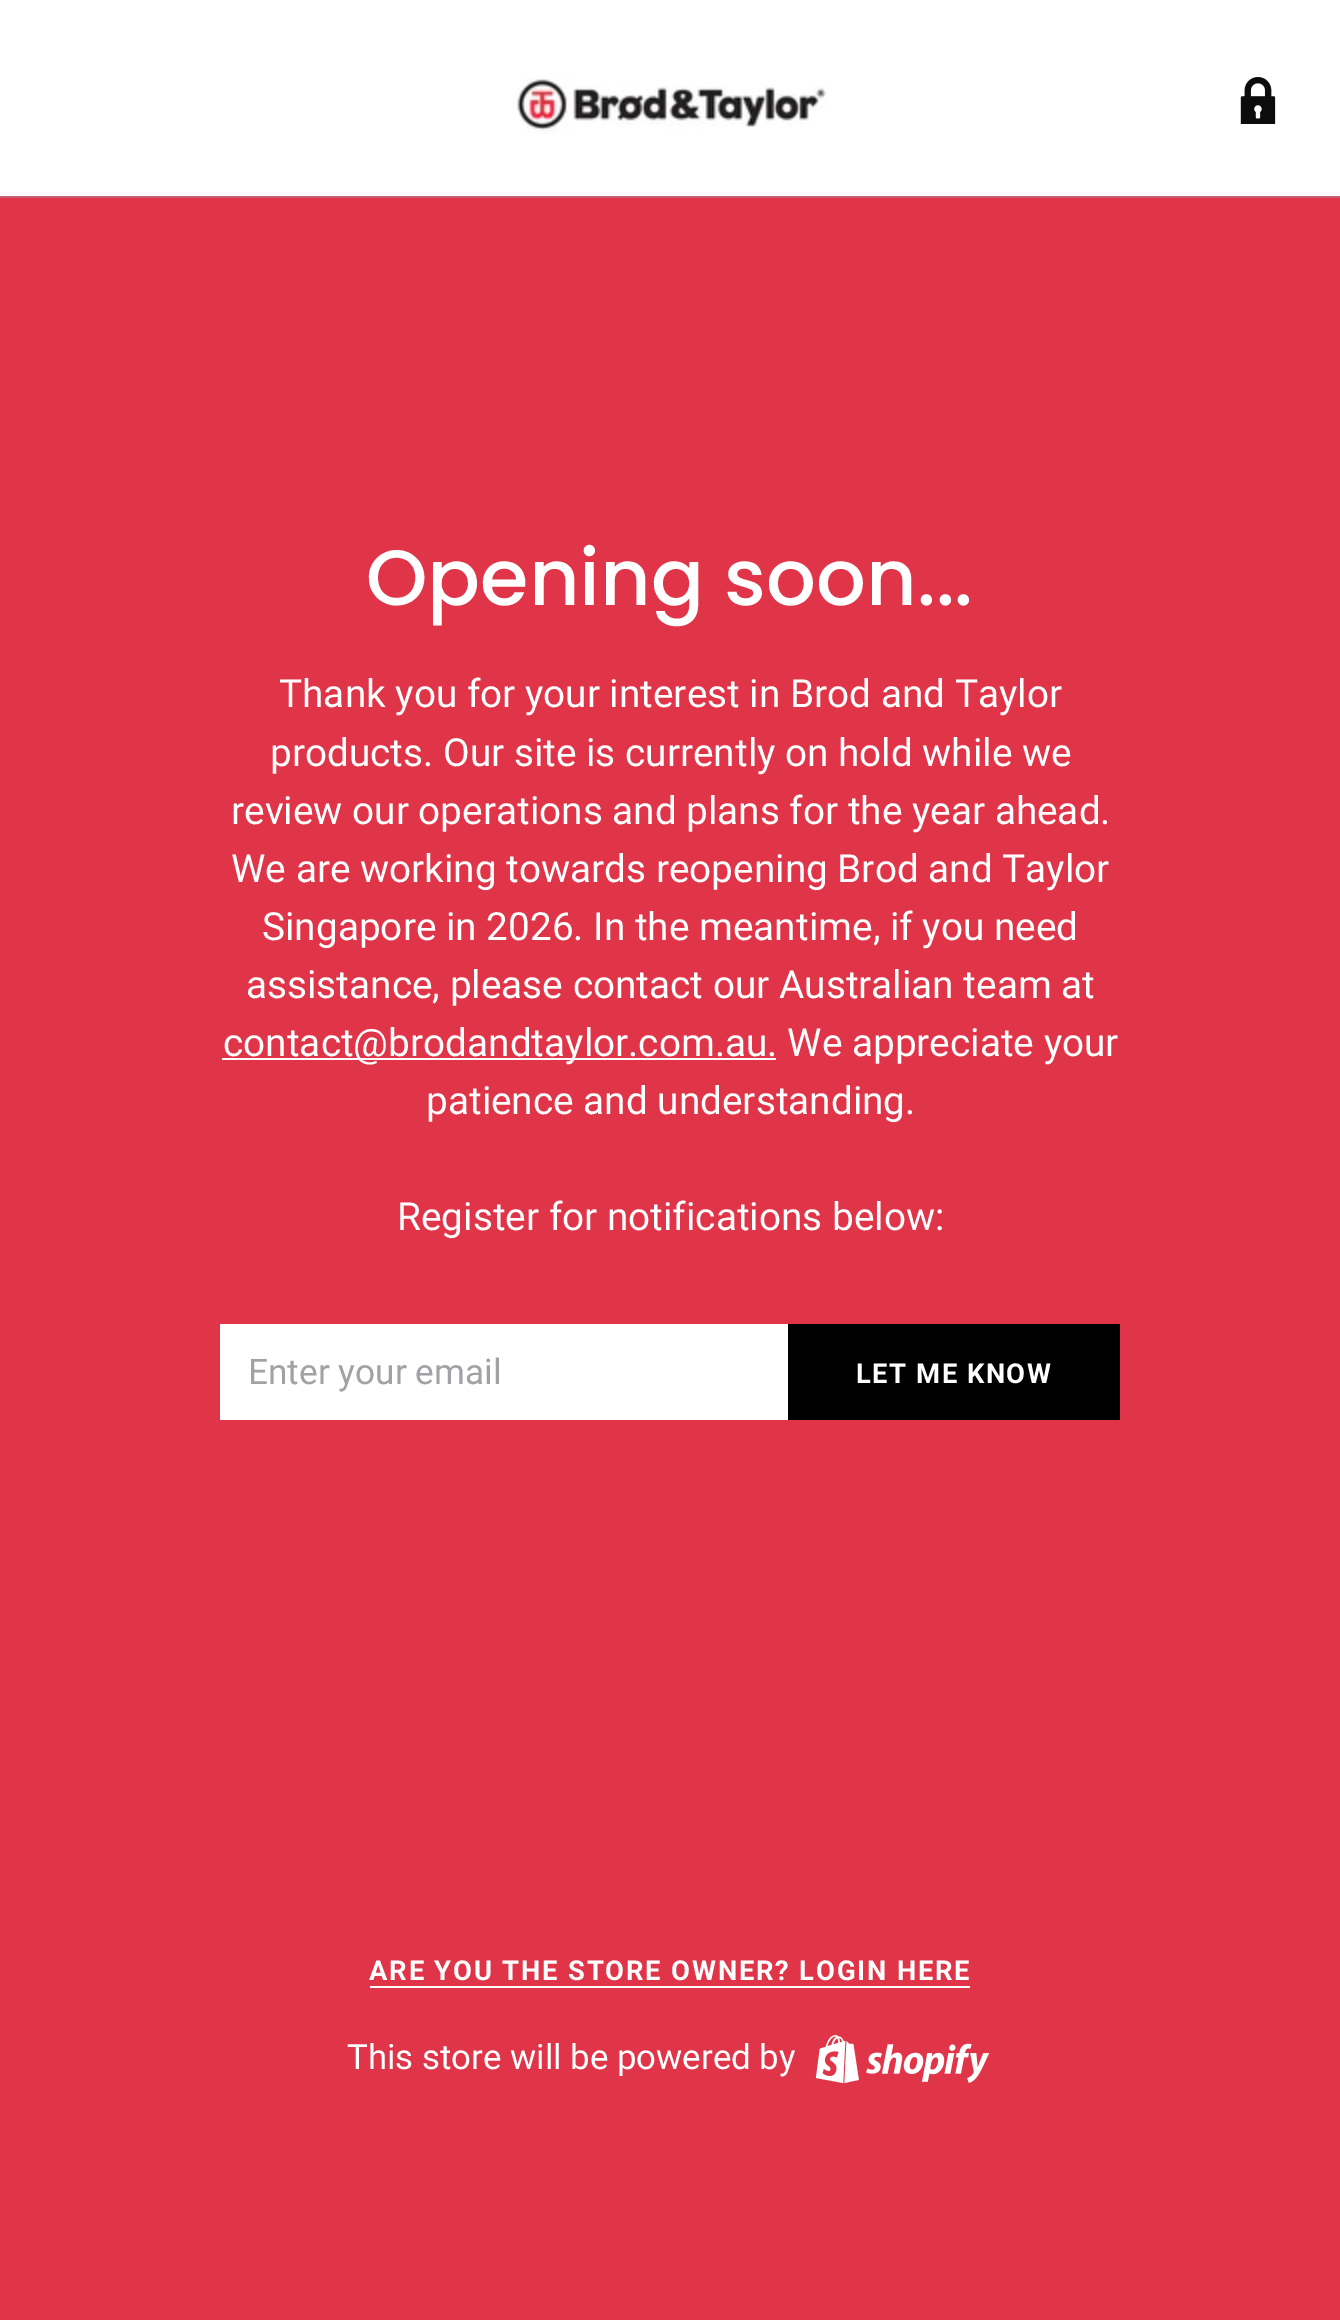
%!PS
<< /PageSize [1340 2320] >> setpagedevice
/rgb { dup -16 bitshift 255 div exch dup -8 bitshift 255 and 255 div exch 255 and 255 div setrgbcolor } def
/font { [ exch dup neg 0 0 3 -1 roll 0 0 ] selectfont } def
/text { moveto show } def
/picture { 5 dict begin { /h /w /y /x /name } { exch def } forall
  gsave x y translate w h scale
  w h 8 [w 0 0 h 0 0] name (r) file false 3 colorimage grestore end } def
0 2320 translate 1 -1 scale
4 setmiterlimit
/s1 { /Poppins-Medium 78.25 font 16#FFFFFF rgb } def
/s2 { /Roboto-Regular 38.75 font 16#FFFFFF rgb } def
/s3 { /Roboto-Regular 35.25 font 16#A1A1A6 rgb } def
/s4 { /Roboto-Regular 34.8 font 16#FFFFFF rgb } def
16#E03548 rgb
0 0 1340 2320 rectfill
16#FFFFFF rgb
0 0 1340 196 rectfill
16#C7606E rgb
0 196 1340 2 rectfill
(pic1.raw) 517 78 310 56 picture
(pic2.raw) 1240 77 36 47 picture
s1
(Opening soon...) 366 605 text
s2
(Thank you for your interest in Brod and Taylor) 279 707 text
(products. Our site is currently on hold while we) 270 766 text
(review our operations and plans for the year ahead.) 231 824 text
(We are working towards reopening Brod and Taylor) 231 882 text
(Singapore in 2026. In the meantime, if you need) 262 940 text
(assistance, please contact our Australian team at) 246 998 text
222 1058 554 2 rectfill
(contact@brodandtaylor.com.au. We appreciate your) 223 1056 text
(patience and understanding.) 426 1114 text
(Register for notifications below:) 397 1230 text
220 1324 568 96 rectfill
s3
(Enter your email) 248 1384 text
16#000000 rgb
788 1324 332 96 rectfill
/Roboto-Bold 27.4 font
16#FFFFFF rgb
856 1383 moveto 1.5 0 (LET ME KNOW) ashow
369 1980 moveto 1.8 0 (ARE YOU THE STORE OWNER? LOGIN HERE) ashow
370 1986 600 2 rectfill
s4
(This store will be powered by) 347 2069 text
(pic3.raw) 815 2035 175 49 picture
showpage
